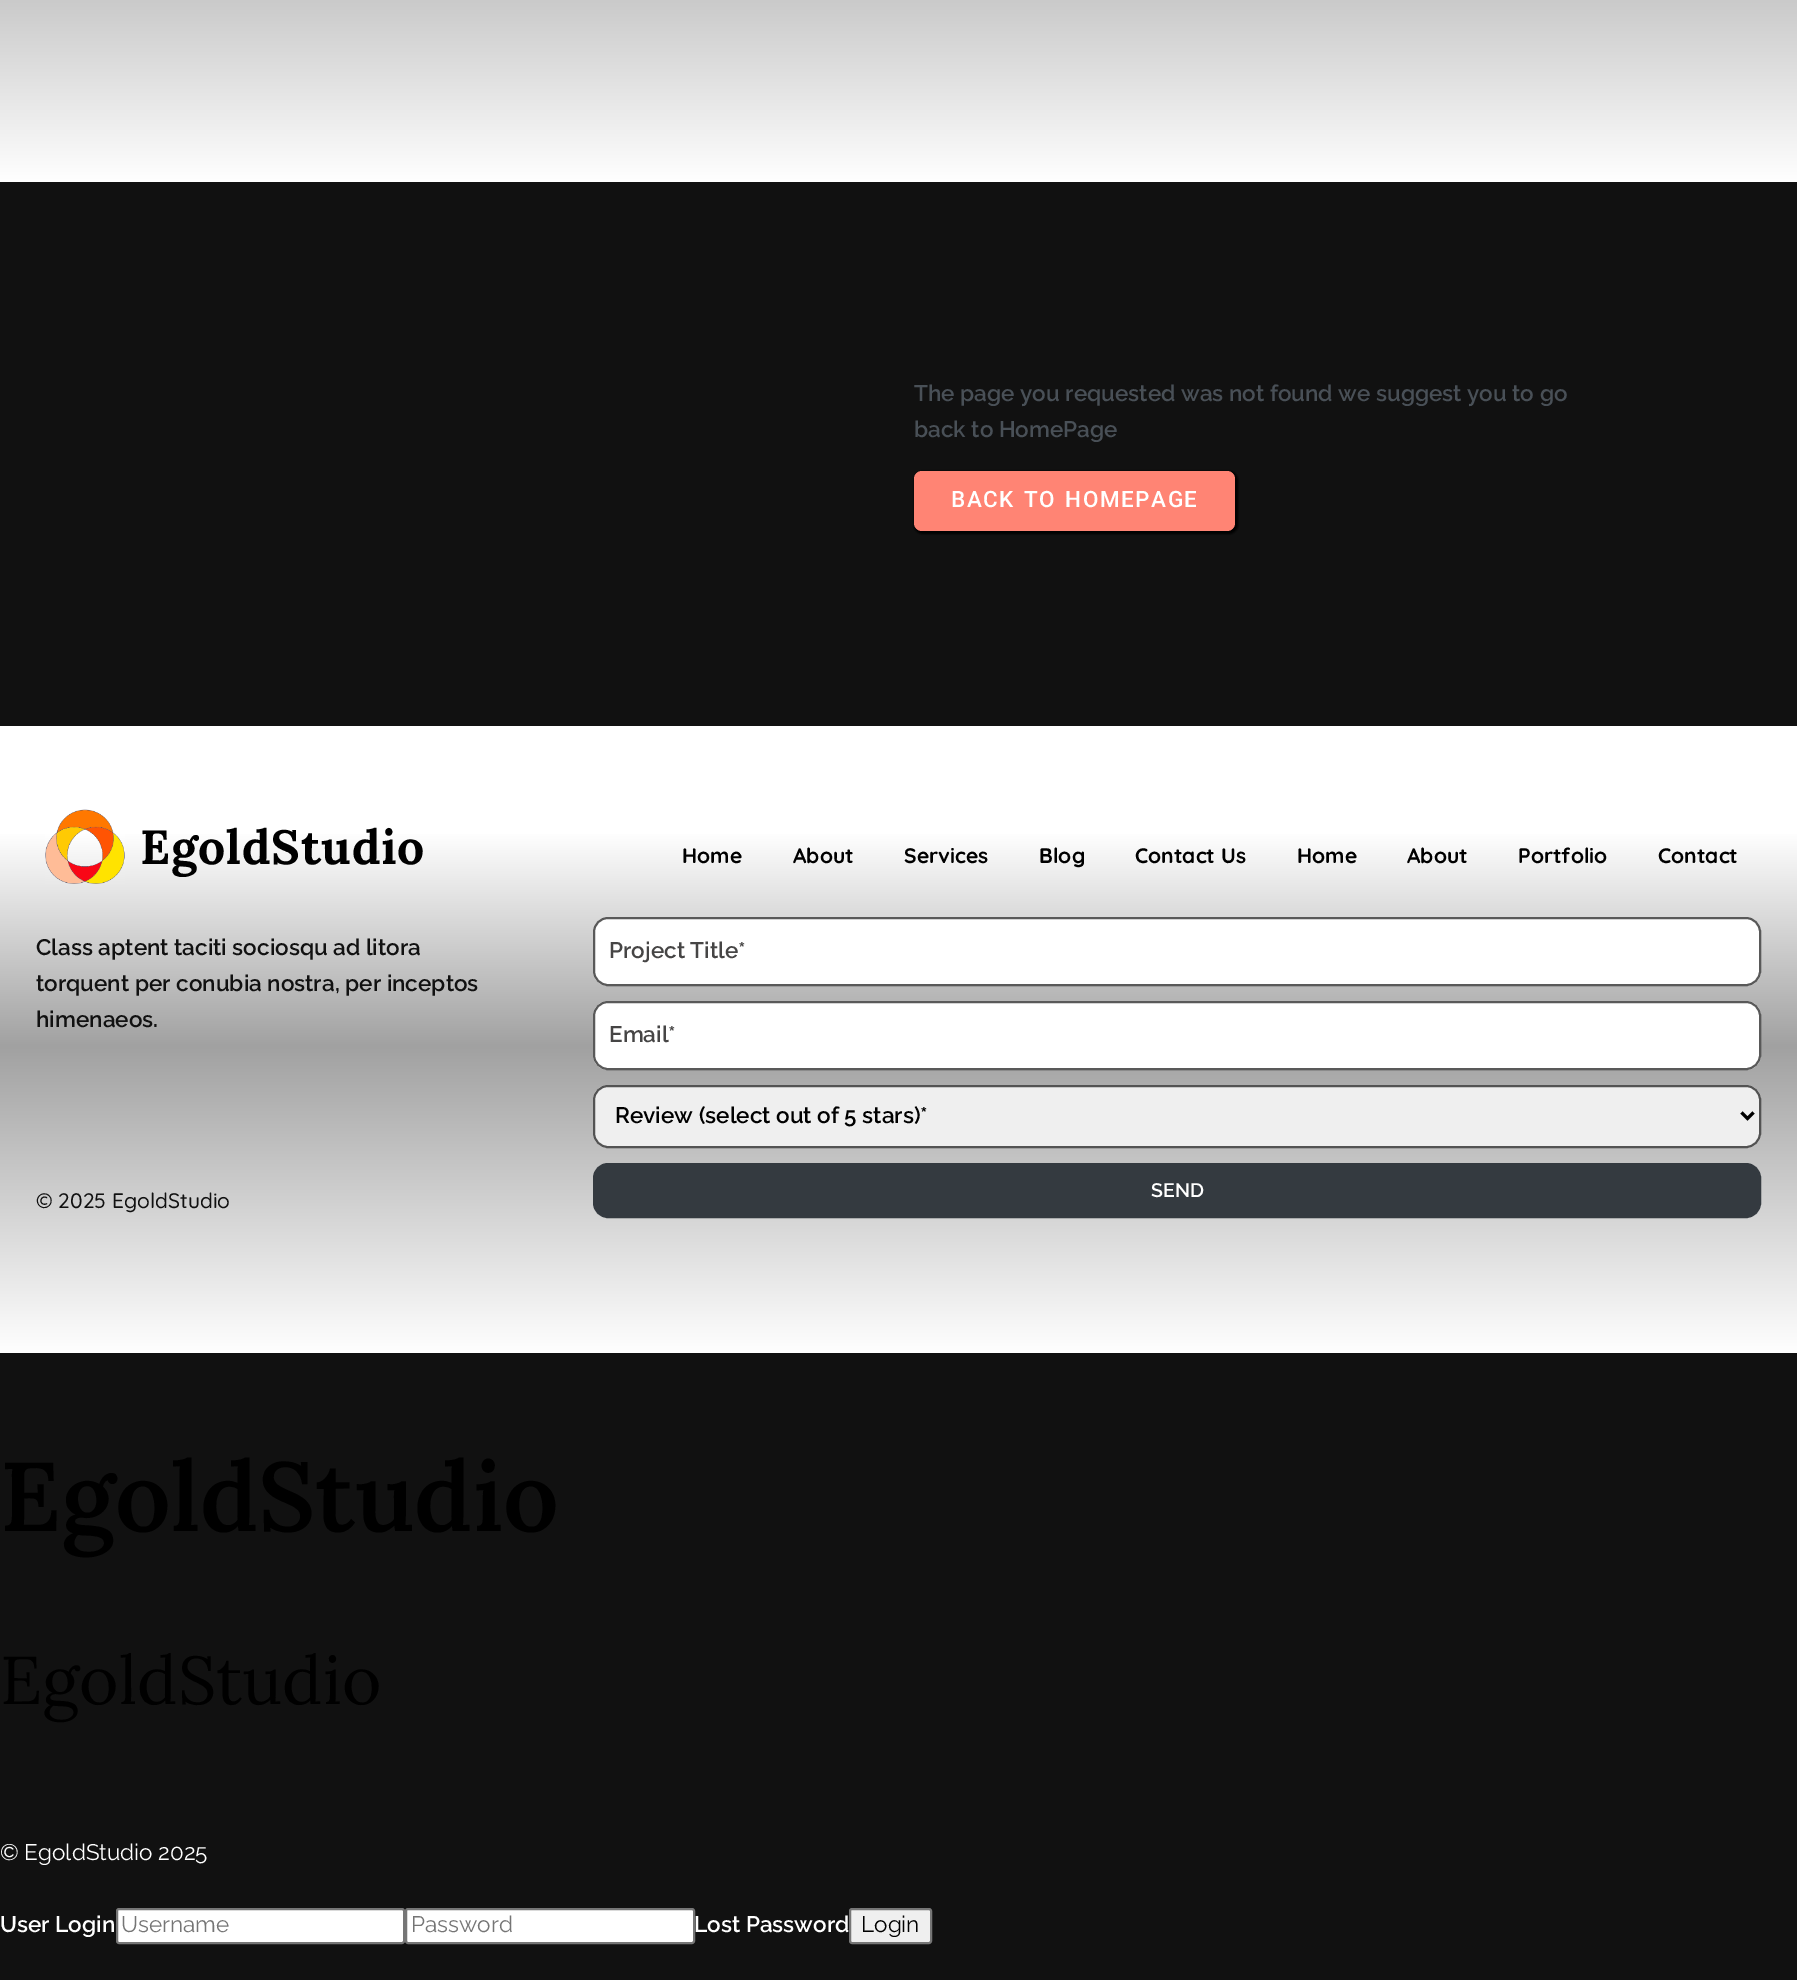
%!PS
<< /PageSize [1797 1980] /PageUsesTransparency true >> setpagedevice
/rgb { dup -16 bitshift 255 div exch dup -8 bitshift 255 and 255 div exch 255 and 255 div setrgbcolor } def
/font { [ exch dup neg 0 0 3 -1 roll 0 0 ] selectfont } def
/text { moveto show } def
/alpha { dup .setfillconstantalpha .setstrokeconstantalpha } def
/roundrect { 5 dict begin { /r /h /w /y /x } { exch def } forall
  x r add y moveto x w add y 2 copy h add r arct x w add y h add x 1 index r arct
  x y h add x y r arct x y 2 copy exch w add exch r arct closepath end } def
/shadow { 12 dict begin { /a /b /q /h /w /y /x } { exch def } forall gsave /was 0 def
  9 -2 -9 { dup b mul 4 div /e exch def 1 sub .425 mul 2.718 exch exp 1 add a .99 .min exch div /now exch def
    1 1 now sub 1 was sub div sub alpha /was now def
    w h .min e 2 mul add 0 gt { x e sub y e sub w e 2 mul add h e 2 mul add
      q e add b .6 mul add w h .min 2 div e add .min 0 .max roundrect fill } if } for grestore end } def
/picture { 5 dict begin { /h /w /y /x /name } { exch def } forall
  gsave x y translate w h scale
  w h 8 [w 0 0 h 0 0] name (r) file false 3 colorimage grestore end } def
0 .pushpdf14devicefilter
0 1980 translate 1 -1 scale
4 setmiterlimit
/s1 { /Raleway-SemiBold 22.5 font 16#495057 rgb } def
/s2 { /Raleway-SemiBold 22.5 font 16#111111 rgb } def
/s3 { /Quicksand-Medium 21 font 16#111111 rgb } def
/s4 { /Quicksand-Bold 21 font 16#000000 rgb } def
/s5 { /Raleway-SemiBold 22.5 font 16#464545 rgb } def
/s6 { /Raleway-SemiBold 22.5 font 16#000000 rgb } def
/s7 { /Raleway-SemiBold 19.5 font 16#FFFFFF rgb } def
/s8 { /Lora-SemiBold 97.5 font 16#000000 rgb } def
/s9 { /Lora-Regular 67.5 font 16#000000 rgb } def
/s10 { /Raleway-Regular 22.5 font 16#FFFFFF rgb } def
/s11 { /Raleway-SemiBold 22.5 font 16#FFFFFF rgb } def
/s12 { /Raleway-Regular 22.5 font 16#757575 rgb } def
/s13 { /Raleway-Regular 22.5 font 16#000000 rgb } def
16#111111 rgb
0 0 1797 1980 rectfill
gsave 0 0 moveto 1797 0 lineto 1797 182 lineto 0 182 lineto closepath clip newpath
<< /ShadingType 2 /ColorSpace /DeviceRGB /Coords [899 -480 899 182] /Extend [true true] /Function << /FunctionType 3 /Domain [0 1] /Functions [<< /FunctionType 2 /Domain [0 1] /C0 [1 1 1] /C1 [1 1 1] /N 1 >> << /FunctionType 2 /Domain [0 1] /C0 [1 1 1] /C1 [0.631 0.631 0.631] /N 1 >> << /FunctionType 2 /Domain [0 1] /C0 [0.631 0.631 0.631] /C1 [1 1 1] /N 1 >>] /Bounds [0.17 0.51] /Encode [0 1 0 1 0 1] >> >> shfill grestore
s1
(The page you requested was not found we suggest you to go) 914 401 text
(back to HomePage) 914 437 text
16#000000 rgb
914 471 324 63 9 1 1 shadow
16#FF8474 rgb
914 471 321 60 8 roundrect fill
/Roboto-Medium 22.5 font
16#FFFFFF rgb
951 507 moveto 2 0 32 1.5 0 (BACK TO HOMEPAGE) awidthshow
gsave 0 726 moveto 1797 726 lineto 1797 1353 lineto 0 1353 lineto closepath clip newpath
<< /ShadingType 2 /ColorSpace /DeviceRGB /Coords [899 726 899 1353] /Extend [true true] /Function << /FunctionType 3 /Domain [0 1] /Functions [<< /FunctionType 2 /Domain [0 1] /C0 [1 1 1] /C1 [1 1 1] /N 1 >> << /FunctionType 2 /Domain [0 1] /C0 [1 1 1] /C1 [0.631 0.631 0.631] /N 1 >> << /FunctionType 2 /Domain [0 1] /C0 [0.631 0.631 0.631] /C1 [1 1 1] /N 1 >>] /Bounds [0.17 0.51] /Encode [0 1 0 1 0 1] >> >> shfill grestore
(pic1.raw) 45 809 80 75 picture
/Lora-Bold 48 font
16#000000 rgb
140 864 moveto 0.75 0 (EgoldStudio) ashow
s2
(Class aptent taciti sociosqu ad litora) 36 955 text
(torquent per conubia nostra, per inceptos) 36 991 text
(himenaeos.) 36 1027 text
s3
(© 2025 EgoldStudio) 36 1208 text
s4
(Home) 682 863 text
(About) 793 863 text
(Services) 904 863 text
(Blog) 1039 863 text
(Contact Us) 1135 863 text
(Home) 1297 863 text
(About) 1407 863 text
(Portfolio) 1518 863 text
(Contact) 1658 863 text
16#FFFFFF rgb
593 917 1168 69 15 roundrect fill
0.65 alpha
16#000000 rgb
2 setlinewidth
594 918 1166 67 14 roundrect stroke
1 alpha
s5
(Project Title*) 609 958 text
16#FFFFFF rgb
593 1001 1168 69 15 roundrect fill
0.65 alpha
16#000000 rgb
594 1002 1166 67 14 roundrect stroke
1 alpha
s5
(Email*) 609 1042 text
16#EFEFEF rgb
593 1085 1168 63 15 roundrect fill
0.65 alpha
16#000000 rgb
594 1086 1166 61 14 roundrect stroke
1 alpha
3 setlinewidth
1741.5 1112.5 moveto 1747.5 1118.5 lineto 1753.5 1112.5 lineto stroke
(Review \(select out of 5 stars\)*) 615 1123 text
16#343A40 rgb
594.5 1164.5 1165 52 13.5 roundrect gsave fill grestore
stroke
s7
(SEND) 1151 1197 text
s8
(EgoldStudio) 0 1531 text
s9
(EgoldStudio) 0 1704 text
s10
(© EgoldStudio 2025) 0 1860 text
s11
(User Login) 0 1932 text
117 1909 287 34 2 roundrect gsave fill grestore
16#767676 rgb
2 setlinewidth
stroke
s12
(Username) 121 1932 text
16#FFFFFF rgb
406 1909 288 34 2 roundrect gsave fill grestore
16#767676 rgb
stroke
s12
(Password) 411 1932 text
s11
(Lost Password) 694 1932 text
16#EFEFEF rgb
850 1909 81 34 2 roundrect gsave fill grestore
16#767676 rgb
stroke
s13
(Login) 861 1932 text
.poppdf14devicefilter showpage
